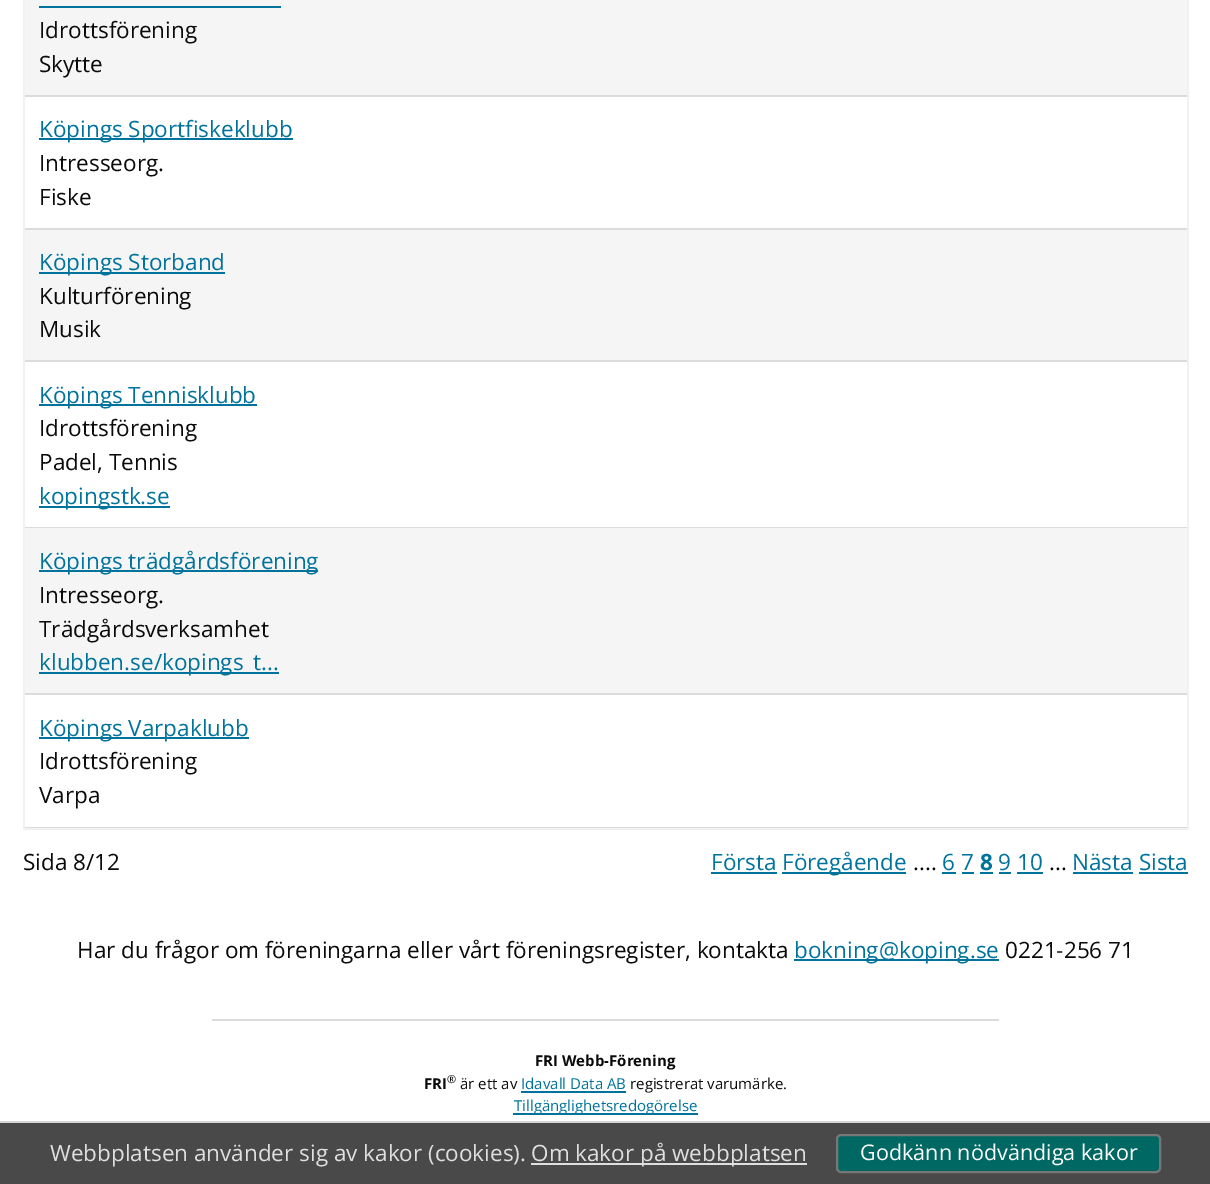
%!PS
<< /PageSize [1210 1184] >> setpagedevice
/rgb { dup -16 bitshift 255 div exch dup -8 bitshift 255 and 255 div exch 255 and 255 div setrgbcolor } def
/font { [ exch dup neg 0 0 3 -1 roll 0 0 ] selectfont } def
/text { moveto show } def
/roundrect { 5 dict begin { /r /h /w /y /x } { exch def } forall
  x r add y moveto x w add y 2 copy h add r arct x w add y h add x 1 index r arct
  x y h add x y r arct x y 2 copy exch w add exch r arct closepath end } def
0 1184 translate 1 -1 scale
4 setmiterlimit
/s1 { /OpenSans-Regular 22.5 font 16#0A0A0A rgb } def
/s2 { /OpenSans-Regular 22.5 font 16#00739C rgb } def
/s3 { /OpenSans-Bold 22.5 font 16#00739C rgb } def
/s4 { /OpenSans-Bold 15 font 16#0A0A0A rgb } def
/s5 { /OpenSans-Regular 11 font 16#0A0A0A rgb } def
/s6 { /OpenSans-Regular 15 font 16#0A0A0A rgb } def
/s7 { /OpenSans-Regular 15 font 16#00739C rgb } def
/s8 { /OpenSans-Regular 22.5 font 16#DFDFDF rgb } def
/s9 { /OpenSans-Regular 21.6 font 16#FEFEFE rgb } def
16#FFFFFF rgb
0 0 1210 1184 rectfill
16#F1F1F1 rgb
1187 0 2 830 rectfill
23 828 1165 2 rectfill
16#DCDCDC rgb
24 95 1163 2 rectfill
24 228 1163 2 rectfill
24 360 1163 2 rectfill
24 527 1163 1 rectfill
24 693 1163 2 rectfill
24 827 1163 1 rectfill
16#F1F1F1 rgb
23 0 2 830 rectfill
16#F5F5F5 rgb
25 0 1162 95 rectfill
16#00739C rgb
39 6 242 2 rectfill
s1
(Idrottsförening) 39 38 text
(Skytte) 39 72 text
16#00739C rgb
39 138 254 2 rectfill
(Köpings Sportfiskeklubb) 39 137 text
s1
(Intresseorg.) 39 171 text
(Fiske) 39 205 text
16#F5F5F5 rgb
25 230 1162 130 rectfill
16#00739C rgb
39 272 186 2 rectfill
(Köpings Storband) 39 270 text
s1
(Kulturförening) 39 304 text
(Musik) 39 337 text
16#00739C rgb
39 404 218 2 rectfill
(Köpings Tennisklubb) 39 403 text
s1
(Idrottsförening) 39 436 text
(Padel, Tennis) 39 470 text
16#00739C rgb
39 506 131 2 rectfill
(kopingstk.se) 39 504 text
16#F5F5F5 rgb
25 528 1162 165 rectfill
16#00739C rgb
39 570 279 2 rectfill
(Köpings trädgårdsförening) 39 569 text
s1
(Intresseorg.) 39 603 text
(Trädgårdsverksamhet) 39 637 text
16#00739C rgb
39 672 240 2 rectfill
(klubben.se/kopings_t...) 39 670 text
39 737 210 2 rectfill
(Köpings Varpaklubb) 39 736 text
s1
(Idrottsförening) 39 769 text
(Varpa) 39 803 text
(Sida 8/12) 23 870 text
s2
(Första) 711 870 text
711 872 66 2 rectfill
782 872 124 2 rectfill
(Föregående) 782 870 text
s1
(....) 913 870 text
s2
(6 7) 942 870 text
942 872 14 2 rectfill
s3
(8) 980 870 text
980 872 13 2 rectfill
s2
(9 10) 998 870 text
999 872 12 2 rectfill
s1
(...) 1049 870 text
16#00739C rgb
962 872 12 2 rectfill
1017 872 26 2 rectfill
(Nästa Sista) 1072 870 text
1073 872 60 2 rectfill
1139 872 49 2 rectfill
s1
(Har du frågor om föreningarna eller vårt föreningsregister, kontakta) 77 958 text
16#00739C rgb
794 959 205 2 rectfill
(bokning@koping.se) 794 958 text
s1
(0221-256 71) 1005 958 text
16#DCDCDC rgb
212 1019 787 2 rectfill
s4
(FRI Webb-Förening) 535 1066 text
(FRI) 424 1089 text
s5
(®) 447 1083 text
s6
(är ett av) 460 1089 text
s7
(Idavall Data AB) 521 1089 text
521 1091 105 2 rectfill
s6
(registrerat varumärke.) 630 1089 text
16#00739C rgb
513 1113 185 2 rectfill
(Tillgänglighetsredogörelse) 514 1111 text
16#494949 rgb
0 1123 1210 61 rectfill
16#D6D6D6 rgb
0 1121 1210 2 rectfill
s8
(Webbplatsen använder sig av kakor \(cookies\).) 50 1161 text
531 1163 276 2 rectfill
(Om kakor på webbplatsen) 531 1161 text
16#006862 rgb
837 1135 323 37 4 roundrect gsave fill grestore
16#777777 rgb
2 setlinewidth
stroke
s9
(Godkänn nödvändiga kakor) 860 1160 text
showpage
